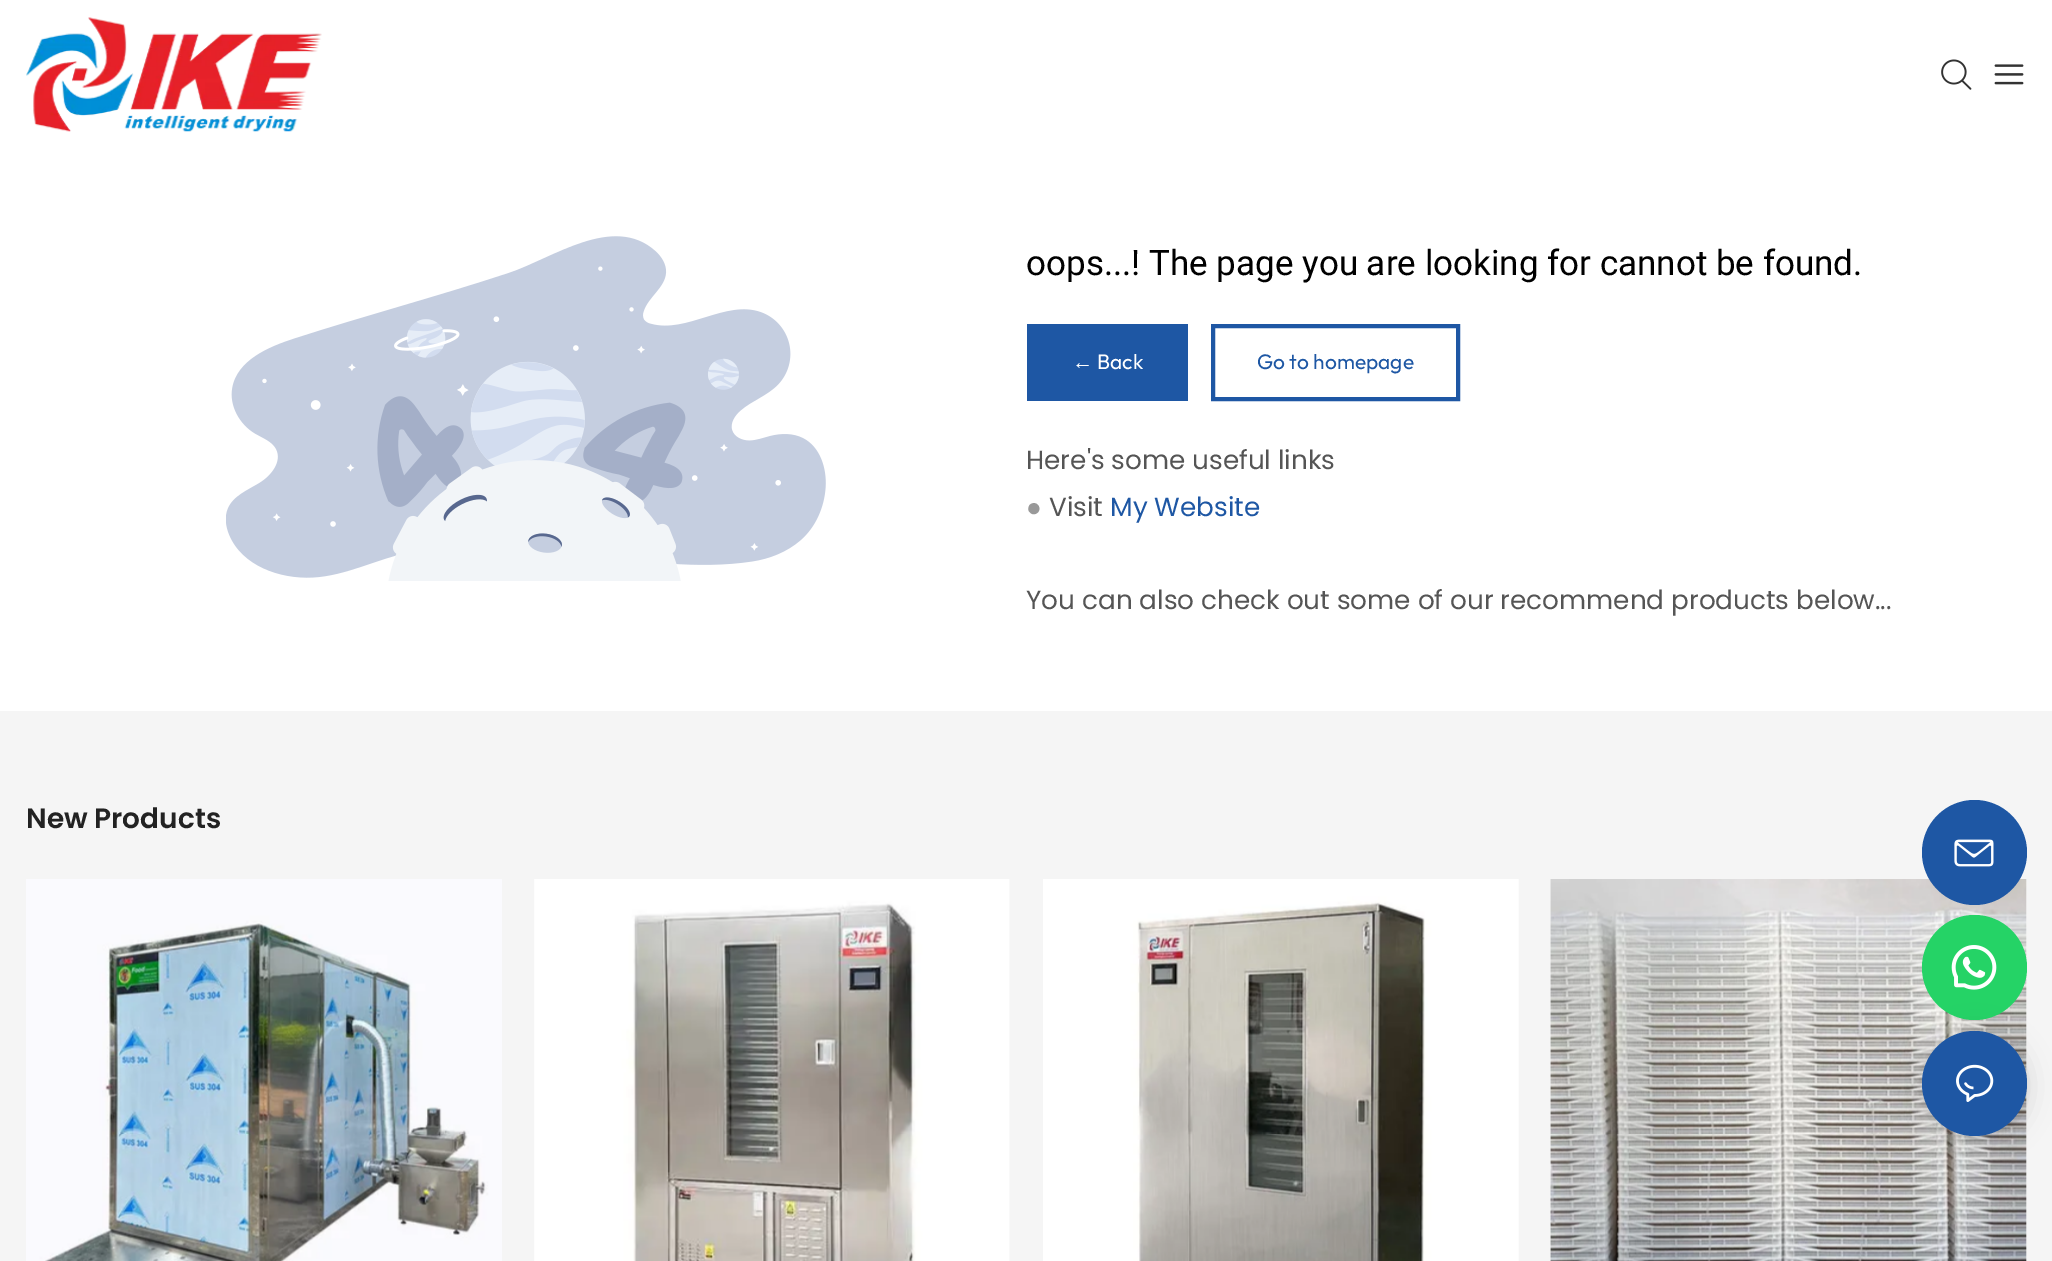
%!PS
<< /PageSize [2052 1261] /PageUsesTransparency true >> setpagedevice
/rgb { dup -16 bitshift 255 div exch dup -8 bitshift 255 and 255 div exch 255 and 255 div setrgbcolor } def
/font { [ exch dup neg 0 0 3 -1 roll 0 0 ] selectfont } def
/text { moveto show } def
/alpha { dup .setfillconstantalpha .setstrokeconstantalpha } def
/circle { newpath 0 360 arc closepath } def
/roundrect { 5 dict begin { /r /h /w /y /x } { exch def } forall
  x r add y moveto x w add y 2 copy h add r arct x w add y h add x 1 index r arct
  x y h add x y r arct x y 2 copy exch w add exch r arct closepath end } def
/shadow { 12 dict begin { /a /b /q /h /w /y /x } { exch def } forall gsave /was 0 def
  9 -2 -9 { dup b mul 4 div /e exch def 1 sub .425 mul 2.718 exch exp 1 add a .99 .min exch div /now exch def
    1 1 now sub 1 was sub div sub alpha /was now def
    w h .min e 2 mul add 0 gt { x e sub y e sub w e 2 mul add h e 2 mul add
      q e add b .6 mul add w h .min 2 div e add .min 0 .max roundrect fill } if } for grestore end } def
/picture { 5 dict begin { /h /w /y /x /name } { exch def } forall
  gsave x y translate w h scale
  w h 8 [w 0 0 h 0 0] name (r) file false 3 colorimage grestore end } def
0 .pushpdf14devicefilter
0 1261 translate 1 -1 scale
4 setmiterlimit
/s1 { /Roboto-Regular 35 font 16#000000 rgb } def
/s2 { /LiberationSerif-Regular 21 font 16#FFFFFF rgb } def
/s3 { /Outfit-Regular 21 font 16#FFFFFF rgb } def
/s4 { /Outfit-Regular 21 font 16#1E57A4 rgb } def
/s5 { /Poppins-Regular 26.25 font 16#555555 rgb } def
/s6 { /LiberationSerif-Regular 26.25 font 16#999999 rgb } def
/s7 { /Poppins-Regular 26.25 font 16#1E57A4 rgb } def
/s8 { /Poppins-SemiBold 28 font 16#222222 rgb } def
16#FFFFFF rgb
0 0 2052 1261 rectfill
(pic1.raw) 26 17 296 115 picture
(pic2.raw) 1941 59 31 31 picture
(pic3.raw) 1994 64 30 21 picture
(pic4.raw) 226 236 600 345 picture
s1
(oops...! The page you are looking for cannot be found.) 1026 275 text
16#1E57A4 rgb
1027 324 161 77 rectfill
s2
(←) 1072 369 text
s3
(Back) 1097 369 text
16#1E57A4 rgb
4 setlinewidth
1213 326 245 73 rectstroke
(Go to homepage) 1257 369 text
s5
(Here's some useful links) 1026 469 text
s6
(●) 1026 516 text
s5
(Visit) 1049 516 text
s7
(My Website) 1110 516 text
s5
(You can also check out some of our recommend products below...) 1026 609 text
16#F5F5F5 rgb
0 711 2052 550 rectfill
s8
(New Products) 26 828 text
(pic5.raw) 26 879 476 382 picture
(pic6.raw) 534 879 476 382 picture
(pic7.raw) 1043 879 476 382 picture
(pic8.raw) 1550 879 477 382 picture
16#1E57A4 rgb
1974.5 852.5 52.5 circle fill
(pic9.raw) 1954 839 40 28 picture
16#25D366 rgb
1974.5 967.5 52.5 circle fill
(pic10.raw) 1951 945 46 45 picture
16#000000 rgb
1922 1034 105 105 52.5 14 0.12 shadow
1922 1033 105 105 52.5 3.5 0.06 shadow
16#1E57A4 rgb
1974.5 1083.5 52.5 circle fill
(pic11.raw) 1956 1064 38 38 picture
.poppdf14devicefilter showpage
